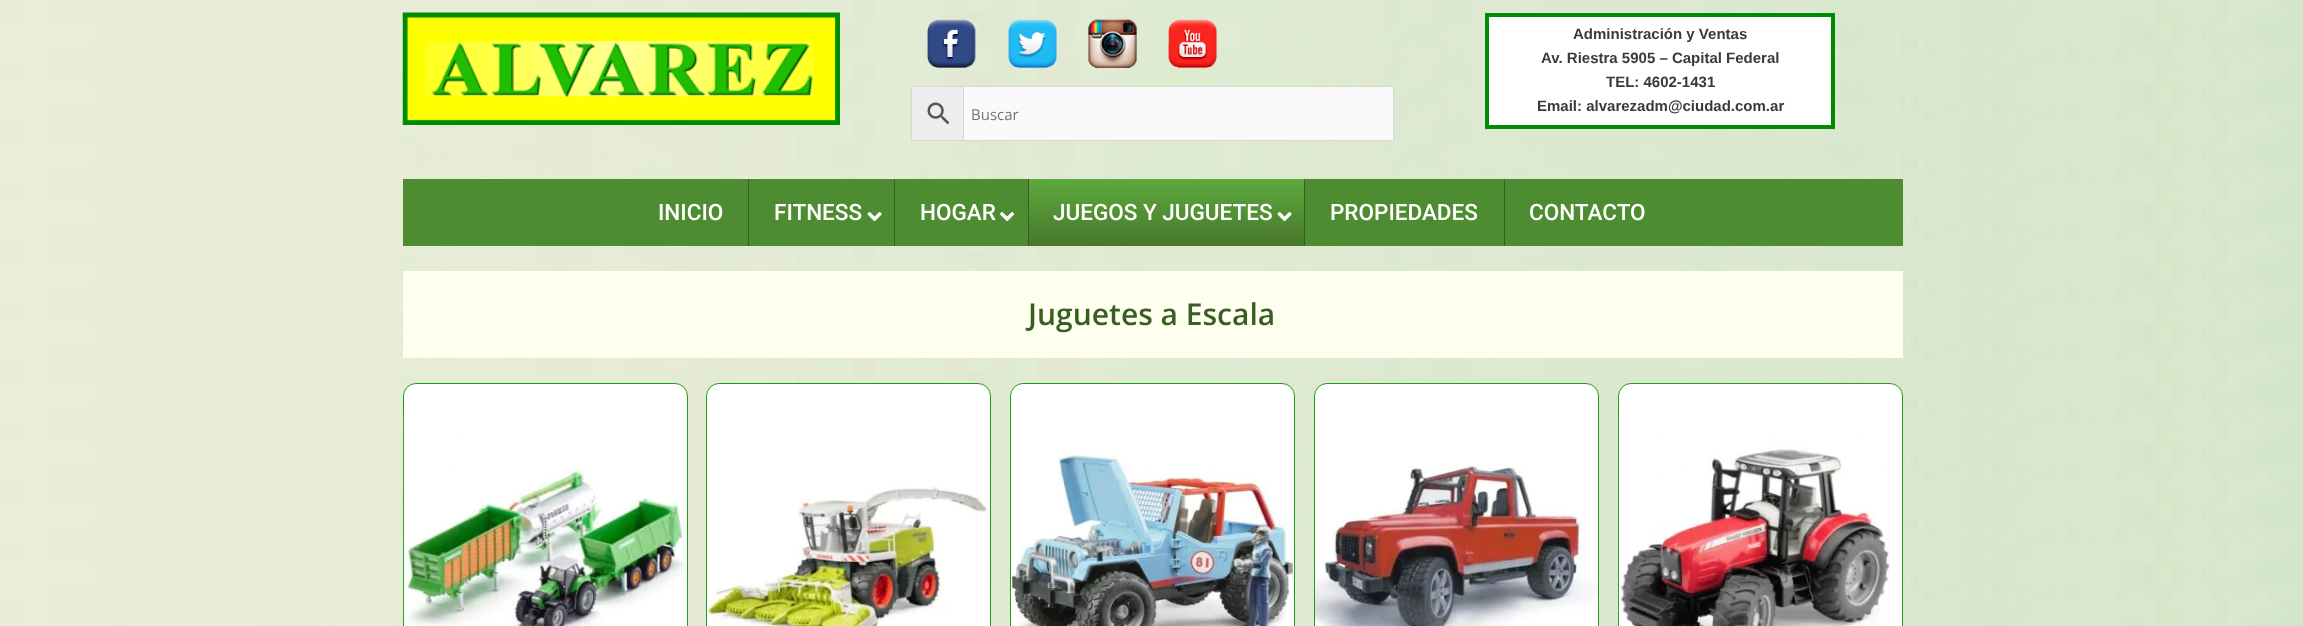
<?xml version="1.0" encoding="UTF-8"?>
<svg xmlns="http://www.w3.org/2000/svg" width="2303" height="626">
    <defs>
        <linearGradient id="g1" gradientUnits="userSpaceOnUse" x1="1166" y1="179" x2="1166" y2="246"><stop offset="0" stop-color="#5CAA3D"/><stop offset="1" stop-color="#49772C"/></linearGradient>
    </defs>
    <rect width="100%" height="100%" fill="#FFFFFF"/>
    <image x="0" y="0" width="2303" height="626" href="img_01.png"/>
    <image x="402" y="12" width="438" height="113" href="img_02.png"/>
    <image x="927" y="19" width="49" height="49" href="img_03.png"/>
    <image x="1008" y="19" width="49" height="49" href="img_04.png"/>
    <image x="1088" y="19" width="49" height="49" href="img_05.png"/>
    <image x="1168" y="19" width="49" height="49" href="img_06.png"/>
    <rect x="911.5" y="86.5" width="52" height="54" fill="#EDEDED" stroke="#D8D8D8"/>
    <image x="927" y="102" width="23" height="23" href="img_07.png"/>
    <rect x="963.5" y="86.5" width="430" height="54" fill="#FAFAFA" stroke="#D8D8D8"/>
    <text x="971" y="120" font-family="Open Sans" font-size="15" fill="#757575">Buscar</text>
    <rect x="1487" y="15" width="346" height="112" fill="#FFFFFF" stroke="#008C00" stroke-width="4"/>
    <text x="1573" y="39" font-family="Liberation Sans" font-size="15" font-weight="700" fill="#3A3A3A">Administración y Ventas</text>
    <text x="1541" y="63" font-family="Liberation Sans" font-size="15" font-weight="700" fill="#3A3A3A">Av. Riestra 5905 – Capital Federal</text>
    <text x="1606" y="87" font-family="Liberation Sans" font-size="15" font-weight="700" fill="#3A3A3A">TEL: 4602-1431</text>
    <text x="1537" y="111" font-family="Liberation Sans" font-size="15" font-weight="700" fill="#3A3A3A">Email: alvarezadm@ciudad.com.ar</text>
    <rect x="403" y="179" width="1500" height="67" fill="#4E8C32"/>
    <text x="658" y="220" font-family="Roboto" font-size="22.5" font-weight="500" fill="#FFFFFF">INICIO</text>
    <rect x="748" y="179" width="1" height="67" fill="#395E22"/>
    <text x="774" y="220" font-family="Roboto" font-size="22.5" font-weight="500" fill="#FFFFFF">FITNESS</text>
    <image x="867" y="212" width="15" height="10" href="img_08.png"/>
    <rect x="894" y="179" width="1" height="67" fill="#395E22"/>
    <text x="920" y="220" font-family="Roboto" font-size="22.5" font-weight="500" fill="#FFFFFF">HOGAR</text>
    <image x="1000" y="212" width="15" height="10" href="img_09.png"/>
    <rect x="1029" y="179" width="275" height="67" fill="url(#g1)"/>
    <rect x="1028" y="179" width="1" height="67" fill="#395E22"/>
    <text x="1053" y="220" font-family="Roboto" font-size="22.5" font-weight="500" fill="#FFFFFF">JUEGOS Y JUGUETES</text>
    <image x="1277" y="212" width="15" height="10" href="img_10.png"/>
    <rect x="1304" y="179" width="1" height="67" fill="#395E22"/>
    <text x="1330" y="220" font-family="Roboto" font-size="22.5" font-weight="500" fill="#FFFFFF">PROPIEDADES</text>
    <rect x="1504" y="179" width="1" height="67" fill="#395E22"/>
    <text x="1529" y="220" font-family="Roboto" font-size="22.5" font-weight="500" fill="#FFFFFF">CONTACTO</text>
    <rect x="403" y="271" width="1500" height="87" fill="#FFFFF0"/>
    <text x="1028" y="325" font-family="Open Sans" font-size="30" font-weight="600" fill="#395E22">Juguetes a Escala</text>
    <rect x="403.5" y="383.5" width="284" height="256" rx="12.5" fill="#FFFFFF" stroke="#1F9C1A"/>
    <image x="403" y="415" width="283" height="211" href="img_11.png"/>
    <rect x="706.5" y="383.5" width="284" height="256" rx="12.5" fill="#FFFFFF" stroke="#1F9C1A"/>
    <image x="707" y="486" width="281" height="140" href="img_12.png"/>
    <rect x="1010.5" y="383.5" width="284" height="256" rx="12.5" fill="#FFFFFF" stroke="#1F9C1A"/>
    <image x="1011" y="455" width="283" height="171" href="img_13.png"/>
    <rect x="1314.5" y="383.5" width="284" height="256" rx="12.5" fill="#FFFFFF" stroke="#1F9C1A"/>
    <image x="1315" y="464" width="282" height="162" href="img_14.png"/>
    <rect x="1618.5" y="383.5" width="284" height="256" rx="12.5" fill="#FFFFFF" stroke="#1F9C1A"/>
    <image x="1618" y="415" width="272" height="211" href="img_15.png"/>
</svg>
